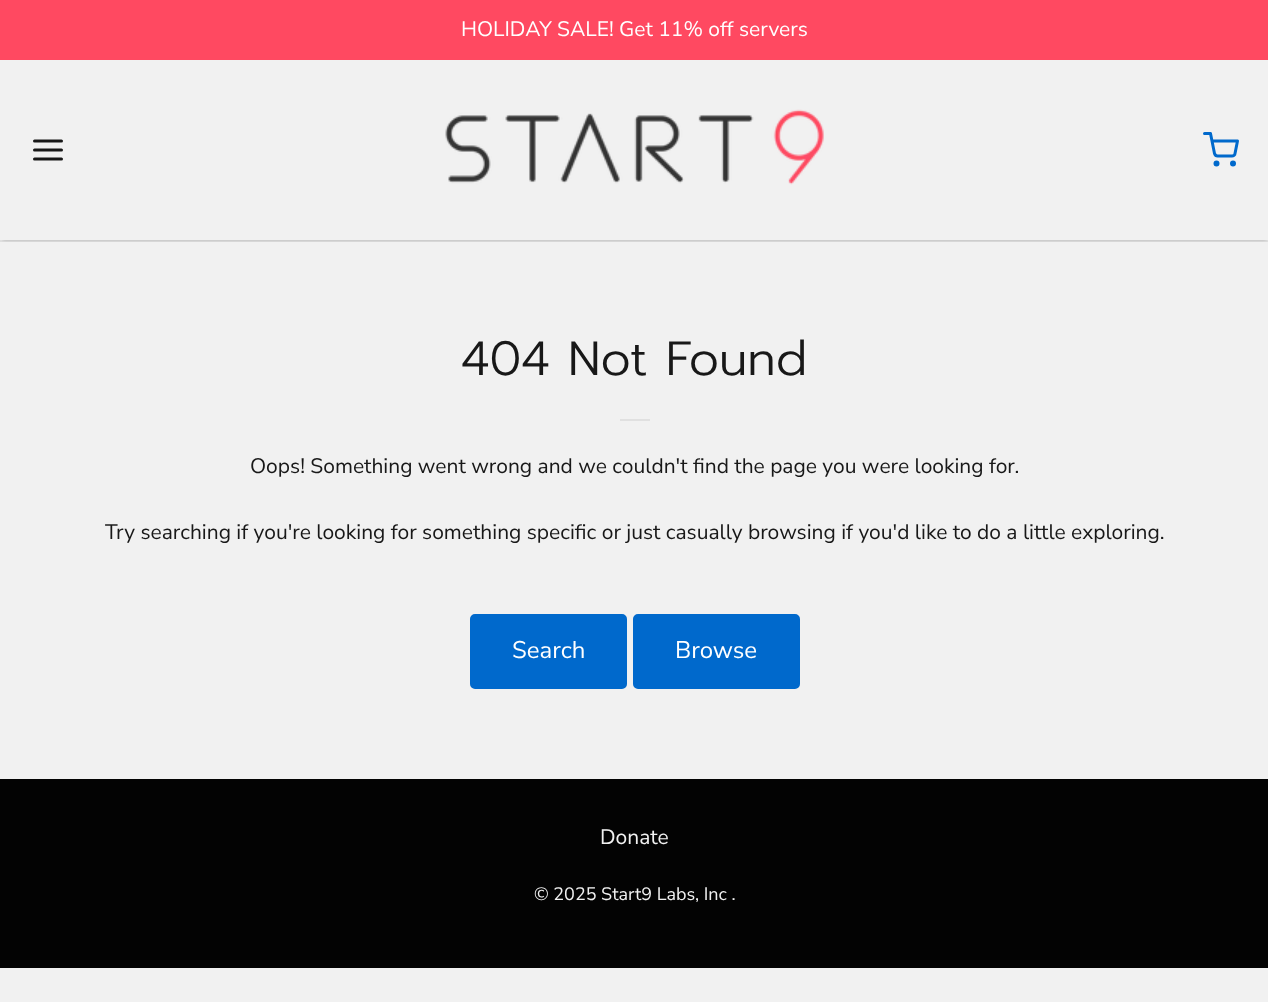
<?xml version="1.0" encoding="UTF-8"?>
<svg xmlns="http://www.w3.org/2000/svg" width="1268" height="1002">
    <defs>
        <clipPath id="clip1"><rect x="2" y="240" width="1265" height="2"/></clipPath>
        <filter id="blur1" x="-50%" y="-200%" width="200%" height="500%"><feGaussianBlur stdDeviation="1.5"/></filter>
    </defs>
    <rect width="100%" height="100%" fill="#F1F1F1"/>
    <rect x="0" y="240" width="1268" height="2" fill="#DEDEDE"/>
    <rect x="0" y="0" width="1268" height="60" fill="#FF4961"/>
    <text x="461" y="36" font-family="Nunito Sans" font-size="21" fill="#FFFFFF">HOLIDAY SALE! Get 11% off servers</text>
    <g clip-path="url(#clip1)">
        <rect x="3" y="66" width="1263" height="174" fill="#000000" fill-opacity="0.2" filter="url(#blur1)"/>
    </g>
    <path d="M 34.5 150 H 61.5 M 34.5 141 H 61.5 M 34.5 159 H 61.5" fill="none" stroke="#181818" stroke-width="3" stroke-linecap="round" stroke-linejoin="round"/>
    <image x="445" y="109" width="379" height="76" href="img_01.png"/>
    <path d="M 1204.5 133.5 H 1210.5 L 1214.5 153.5 C 1215 155 1216 156 1217.5 156 H 1232 C 1233.5 156 1235 155 1235 153.5 L 1237.5 141 H 1212" fill="none" stroke="#0069CC" stroke-width="3" stroke-linecap="round" stroke-linejoin="round"/>
    <circle cx="1216.5" cy="163.5" r="1.5" fill="none" stroke="#0069CC" stroke-width="3"/>
    <circle cx="1233" cy="163.5" r="1.5" fill="none" stroke="#0069CC" stroke-width="3"/>
    <text x="461" y="375" font-family="Prompt" font-size="48" font-weight="300" fill="#181818">404 Not Found</text>
    <rect x="620" y="419" width="30" height="2" fill="#E0E0E0"/>
    <text x="250" y="473" font-family="Nunito Sans" font-size="21" fill="#181818">Oops! Something went wrong and we couldn't find the page you were looking for.</text>
    <text x="105" y="539" font-family="Nunito Sans" font-size="21" fill="#181818">Try searching if you're looking for something specific or just casually browsing if you'd like to do a little exploring.</text>
    <rect x="471.5" y="615.5" width="154" height="72" rx="3.5" fill="#0069CC" stroke="#0069CC" stroke-width="3"/>
    <text x="512" y="658" font-family="Nunito Sans" font-size="24" fill="#FFFFFF">Search</text>
    <rect x="634.5" y="615.5" width="164" height="72" rx="3.5" fill="#0069CC" stroke="#0069CC" stroke-width="3"/>
    <text x="675" y="658" font-family="Nunito Sans" font-size="24" fill="#FFFFFF">Browse</text>
    <rect x="0" y="779" width="1268" height="189" fill="#030303"/>
    <text x="600" y="844" font-family="Nunito Sans" font-size="21" fill="#F1F1F1">Donate</text>
    <text x="534" y="900" font-family="Nunito Sans" font-size="18" fill="#F1F1F1">© 2025 Start9 Labs, Inc .</text>
</svg>
